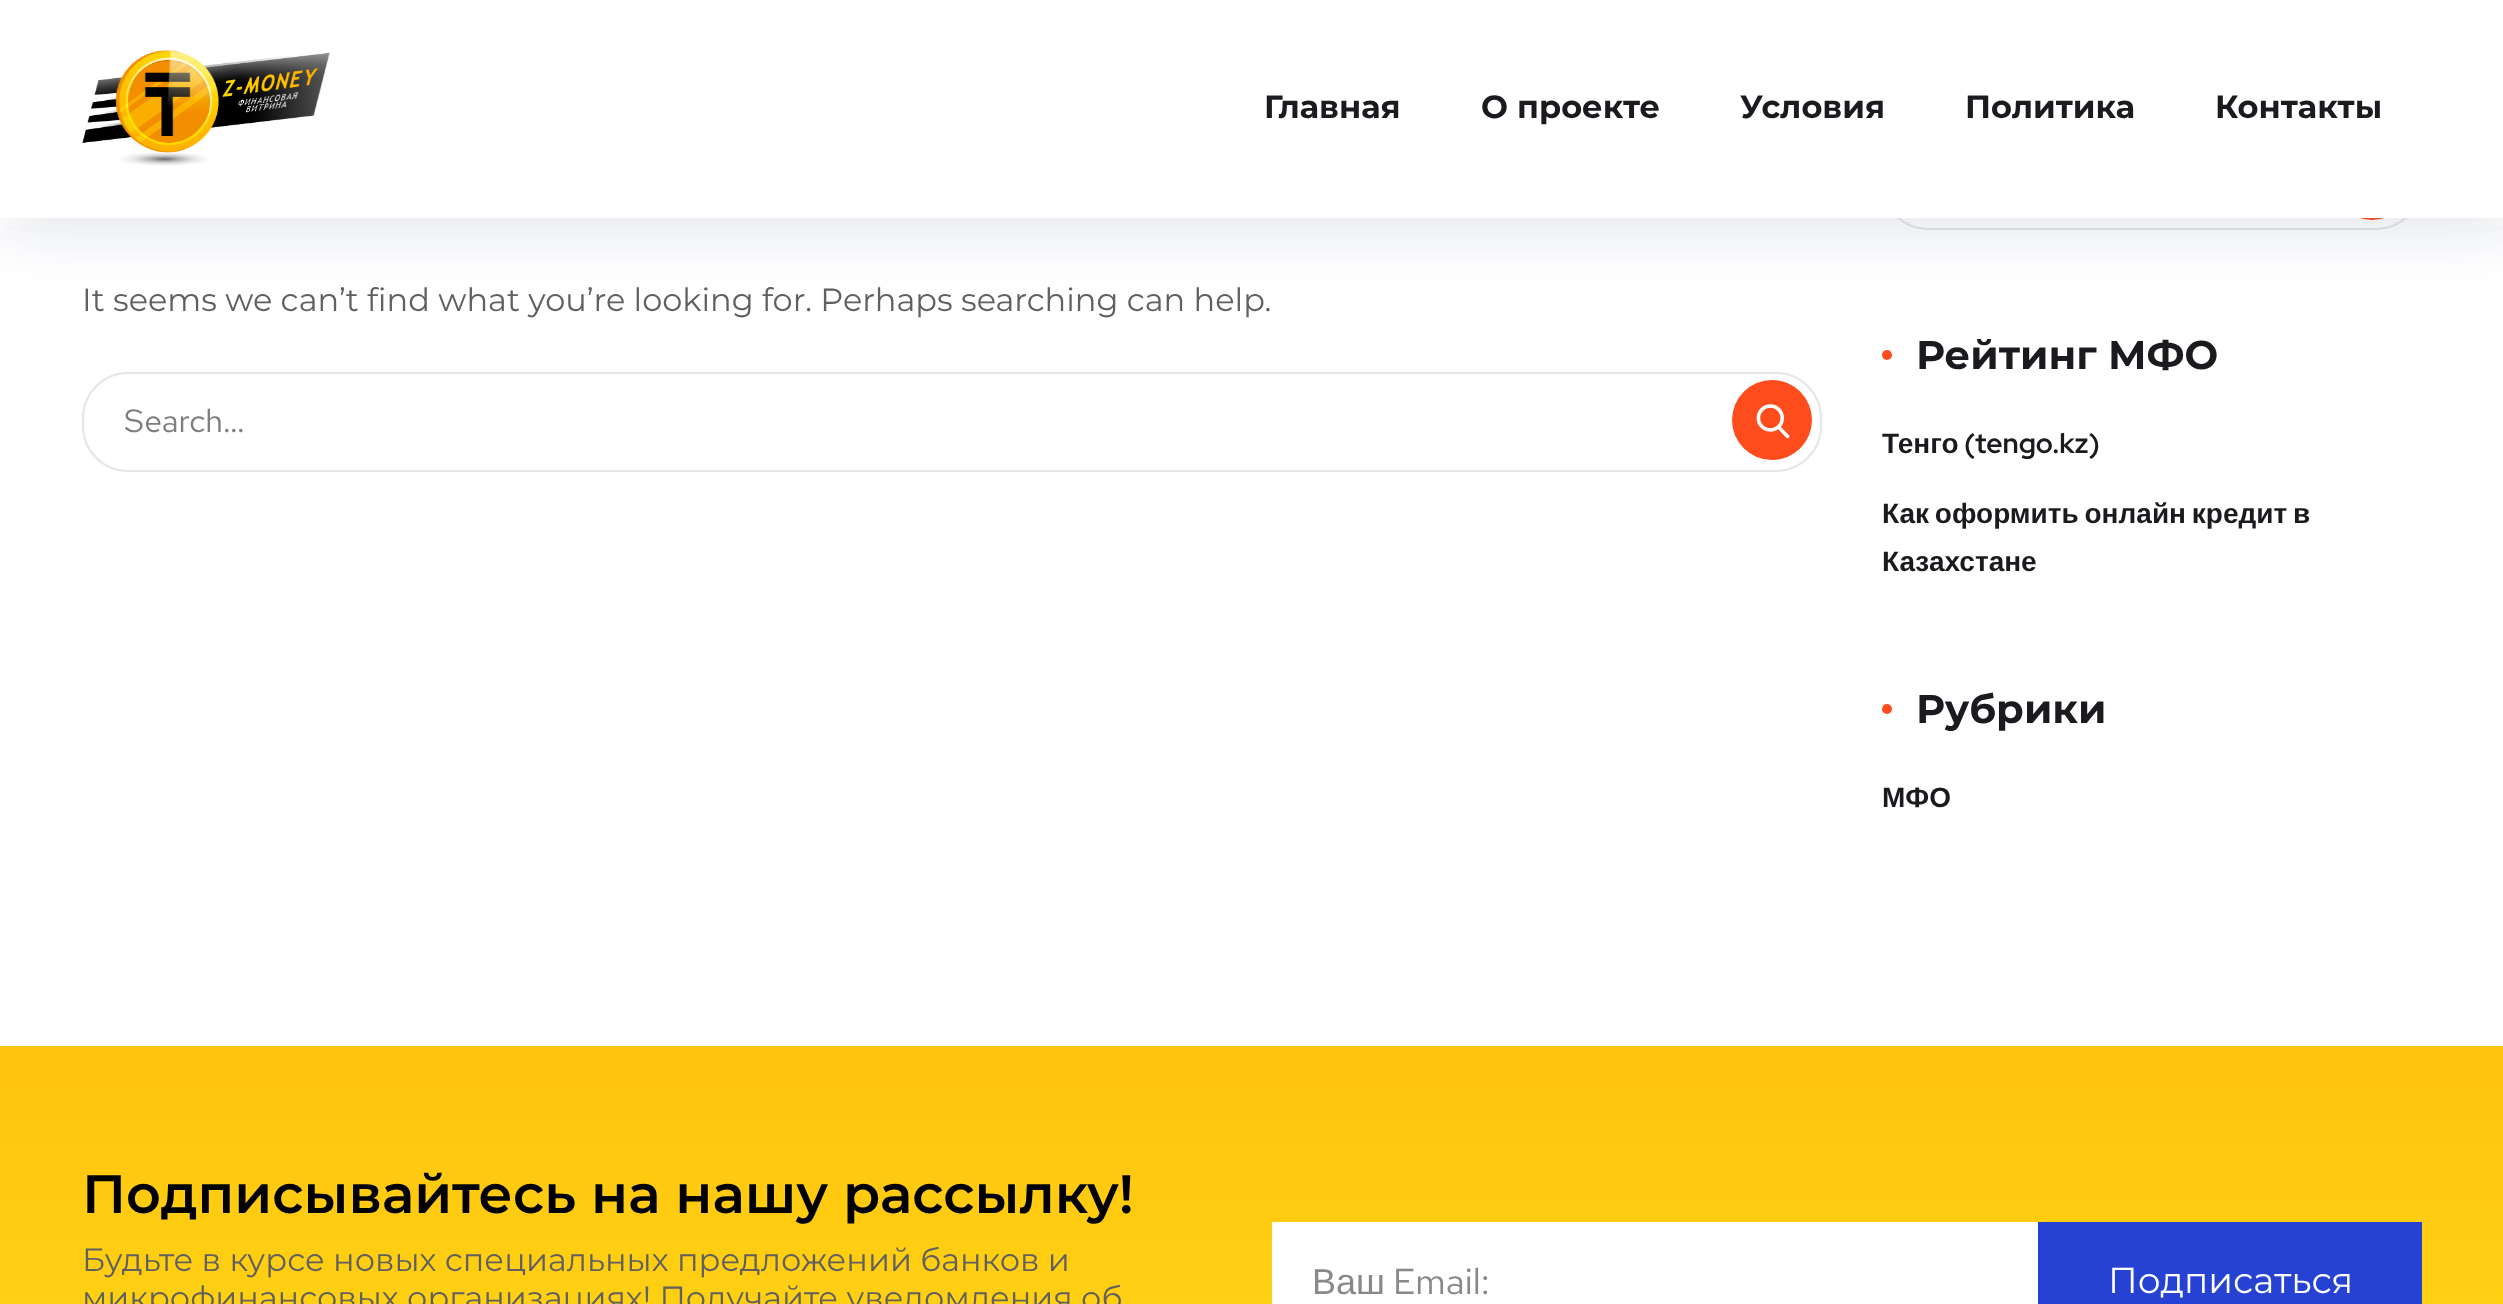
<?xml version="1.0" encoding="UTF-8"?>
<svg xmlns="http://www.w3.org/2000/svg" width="2503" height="1304">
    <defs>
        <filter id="blur1" x="-50%" y="-200%" width="200%" height="500%"><feGaussianBlur stdDeviation="30"/></filter>
        <linearGradient id="g1" gradientUnits="userSpaceOnUse" x1="1252" y1="1046" x2="1252" y2="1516"><stop offset="0" stop-color="#FFC40E"/><stop offset="1" stop-color="#FFD917"/></linearGradient>
    </defs>
    <rect width="100%" height="100%" fill="#FFFFFF"/>
    <rect x="1883" y="131" width="538" height="98" rx="45" fill="none" stroke="#E6E6E6" stroke-width="2"/>
    <circle cx="2372" cy="180" r="40" fill="#FE4C1C"/>
    <rect x="8" y="8" width="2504" height="218" fill="#2A4371" fill-opacity="0.15" filter="url(#blur1)"/>
    <rect x="0" y="0" width="2503" height="218" fill="#FFFFFF"/>
    <image x="82" y="50" width="248" height="116" href="img_01.png"/>
    <text x="1264" y="118" font-family="Montserrat" font-size="32" font-weight="700" fill="#1A1B1E">Главная</text>
    <text x="1481" y="118" font-family="Montserrat" font-size="32" font-weight="700" fill="#1A1B1E">О проекте</text>
    <text x="1740" y="118" font-family="Montserrat" font-size="32" font-weight="700" fill="#1A1B1E">Условия</text>
    <text x="1965" y="118" font-family="Montserrat" font-size="32" font-weight="700" fill="#1A1B1E">Политика</text>
    <text x="2215" y="118" font-family="Montserrat" font-size="32" font-weight="700" fill="#1A1B1E">Контакты</text>
    <text x="82" y="311" font-family="Montserrat" font-size="32" fill="#606060">It seems we can’t find what you’re looking for. Perhaps searching can help.</text>
    <rect x="83" y="373" width="1738" height="98" rx="45" fill="none" stroke="#E6E6E6" stroke-width="2"/>
    <text x="124" y="432" font-family="Red Hat Text" font-size="32" fill="#7E7E7E">Search…</text>
    <circle cx="1772" cy="420" r="40" fill="#FE4C1C"/>
    <image x="1756" y="404" width="34" height="35" href="img_02.png"/>
    <circle cx="1887" cy="355" r="5" fill="#FE4C1C"/>
    <text x="1916" y="369" font-family="Montserrat" font-size="40" font-weight="700" fill="#1A1B1E">Рейтинг МФО</text>
    <text x="1882" y="453" font-family="Liberation Sans" font-size="28" font-weight="700" fill="#1A1B1E">Тенго</text>
    <text x="1964" y="453" font-family="Red Hat Display" font-size="28" font-weight="700" fill="#1A1B1E">(tengo.kz)</text>
    <text font-family="Liberation Sans" font-size="28" font-weight="700" fill="#1A1B1E">
        <tspan x="1882" y="523" word-spacing="-2">Как оформить онлайн кредит в</tspan>
        <tspan x="1882" y="571">Казахстане</tspan>
    </text>
    <circle cx="1887" cy="709" r="5" fill="#FE4C1C"/>
    <text x="1916" y="723" font-family="Montserrat" font-size="40" font-weight="700" fill="#1A1B1E">Рубрики</text>
    <text x="1882" y="807" font-family="Liberation Sans" font-size="28" font-weight="700" fill="#1A1B1E">МФО</text>
    <rect x="0" y="1046" width="2503" height="258" fill="url(#g1)"/>
    <text x="82" y="1213" font-family="Montserrat" font-size="54" font-weight="600" fill="#000000">Подписывайтесь на нашу рассылку!</text>
    <text font-family="Montserrat" font-size="32" fill="#606060">
        <tspan x="82" y="1271">Будьте в курсе новых специальных предложений банков и</tspan>
        <tspan x="82" y="1309">микрофинансовых организациях! Получайте уведомления об</tspan>
    </text>
    <rect x="1272" y="1222" width="766" height="82" fill="#FFFFFF"/>
    <text x="1312" y="1294" font-family="Liberation Sans" font-size="36" fill="#87898A">Ваш</text>
    <text x="1393" y="1294" font-family="Red Hat Text" font-size="36" fill="#87898A">Email:</text>
    <rect x="2038" y="1222" width="384" height="82" fill="#2642D3"/>
    <text x="2108" y="1293" font-family="Montserrat" font-size="36" fill="#FFFFFF">Подписаться</text>
</svg>
